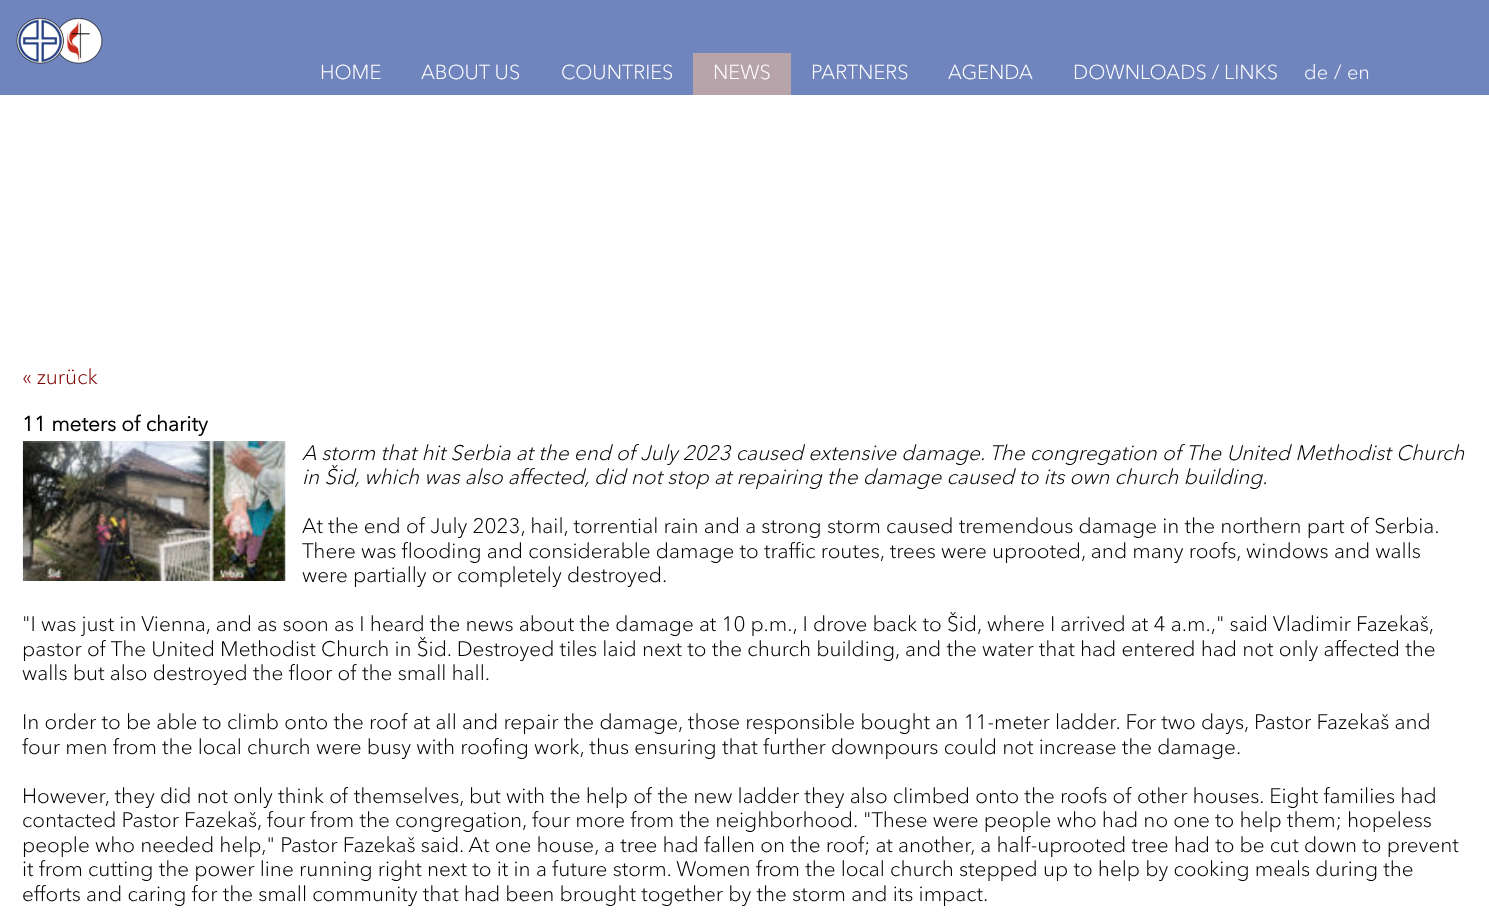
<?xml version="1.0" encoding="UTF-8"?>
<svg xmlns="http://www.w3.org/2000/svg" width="1489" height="912">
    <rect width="100%" height="100%" fill="#FFFFFF"/>
    <rect x="0" y="0" width="1489" height="95" fill="#7084BD"/>
    <image x="16" y="18" width="87" height="46" href="img_01.png"/>
    <text x="320" y="79" font-family="Avenir Next" font-size="20" font-weight="300" fill="#FFFFFF">HOME</text>
    <text x="421" y="79" font-family="Avenir Next" font-size="20" font-weight="300" fill="#FFFFFF">ABOUT US</text>
    <text x="561" y="79" font-family="Avenir Next" font-size="20" font-weight="300" fill="#FFFFFF">COUNTRIES</text>
    <rect x="693" y="53" width="98" height="42" fill="#B7A4AA"/>
    <text x="713" y="79" font-family="Avenir Next" font-size="20" font-weight="300" fill="#FFFFFF">NEWS</text>
    <text x="811" y="79" font-family="Avenir Next" font-size="20" font-weight="300" fill="#FFFFFF">PARTNERS</text>
    <text x="948" y="79" font-family="Avenir Next" font-size="20" font-weight="300" fill="#FFFFFF">AGENDA</text>
    <text x="1073" y="79" font-family="Avenir Next" font-size="20" font-weight="300" fill="#FFFFFF">DOWNLOADS / LINKS</text>
    <text x="1304" y="79" font-family="Avenir Next" font-size="20" font-weight="300" fill="#FFFFFF">de</text>
    <text x="1334" y="79" font-family="Avenir Next" font-size="20" font-weight="300" fill="#FFFFFF">/</text>
    <text x="1347" y="79" font-family="Avenir Next" font-size="20" font-weight="300" fill="#FFFFFF">en</text>
    <text x="22" y="384" font-family="Avenir Next" font-size="20.85" font-weight="300" fill="#800000">« zurück</text>
    <text x="22" y="431" font-family="Avenir Next" font-size="20.85" font-weight="700" fill="#000000">11 meters of charity</text>
    <image x="22" y="441" width="264" height="140" href="img_02.png"/>
    <text font-family="Avenir Next" font-size="20.85" font-weight="300" font-style="italic" fill="#000000">
        <tspan x="302" y="460">A storm that hit Serbia at the end of July 2023 caused extensive damage. The congregation of The United Methodist Church</tspan>
        <tspan x="302" y="484">in Šid, which was also affected, did not stop at repairing the damage caused to its own church building.</tspan>
    </text>
    <text font-family="Avenir Next" font-size="20.85" font-weight="300" fill="#000000">
        <tspan x="302" y="533">At the end of July 2023, hail, torrential rain and a strong storm caused tremendous damage in the northern part of Serbia.</tspan>
        <tspan x="302" y="558">There was flooding and considerable damage to traffic routes, trees were uprooted, and many roofs, windows and walls</tspan>
        <tspan x="302" y="582">were partially or completely destroyed.</tspan>
    </text>
    <text font-family="Avenir Next" font-size="20.85" font-weight="300" fill="#000000">
        <tspan x="22" y="631">"I was just in Vienna, and as soon as I heard the news about the damage at 10 p.m., I drove back to Šid, where I arrived at 4 a.m.," said Vladimir Fazekaš,</tspan>
        <tspan x="22" y="656">pastor of The United Methodist Church in Šid. Destroyed tiles laid next to the church building, and the water that had entered had not only affected the</tspan>
        <tspan x="22" y="680">walls but also destroyed the floor of the small hall.</tspan>
    </text>
    <text font-family="Avenir Next" font-size="20.85" font-weight="300" fill="#000000">
        <tspan x="22" y="729">In order to be able to climb onto the roof at all and repair the damage, those responsible bought an 11-meter ladder. For two days, Pastor Fazekaš and</tspan>
        <tspan x="22" y="754">four men from the local church were busy with roofing work, thus ensuring that further downpours could not increase the damage.</tspan>
    </text>
    <text font-family="Avenir Next" font-size="20.85" font-weight="300" fill="#000000">
        <tspan x="22" y="803">However, they did not only think of themselves, but with the help of the new ladder they also climbed onto the roofs of other houses. Eight families had</tspan>
        <tspan x="22" y="827">contacted Pastor Fazekaš, four from the congregation, four more from the neighborhood. "These were people who had no one to help them; hopeless</tspan>
        <tspan x="22" y="852">people who needed help," Pastor Fazekaš said. At one house, a tree had fallen on the roof; at another, a half-uprooted tree had to be cut down to prevent</tspan>
        <tspan x="22" y="876">it from cutting the power line running right next to it in a future storm. Women from the local church stepped up to help by cooking meals during the</tspan>
        <tspan x="22" y="901">efforts and caring for the small community that had been brought together by the storm and its impact.</tspan>
    </text>
</svg>
